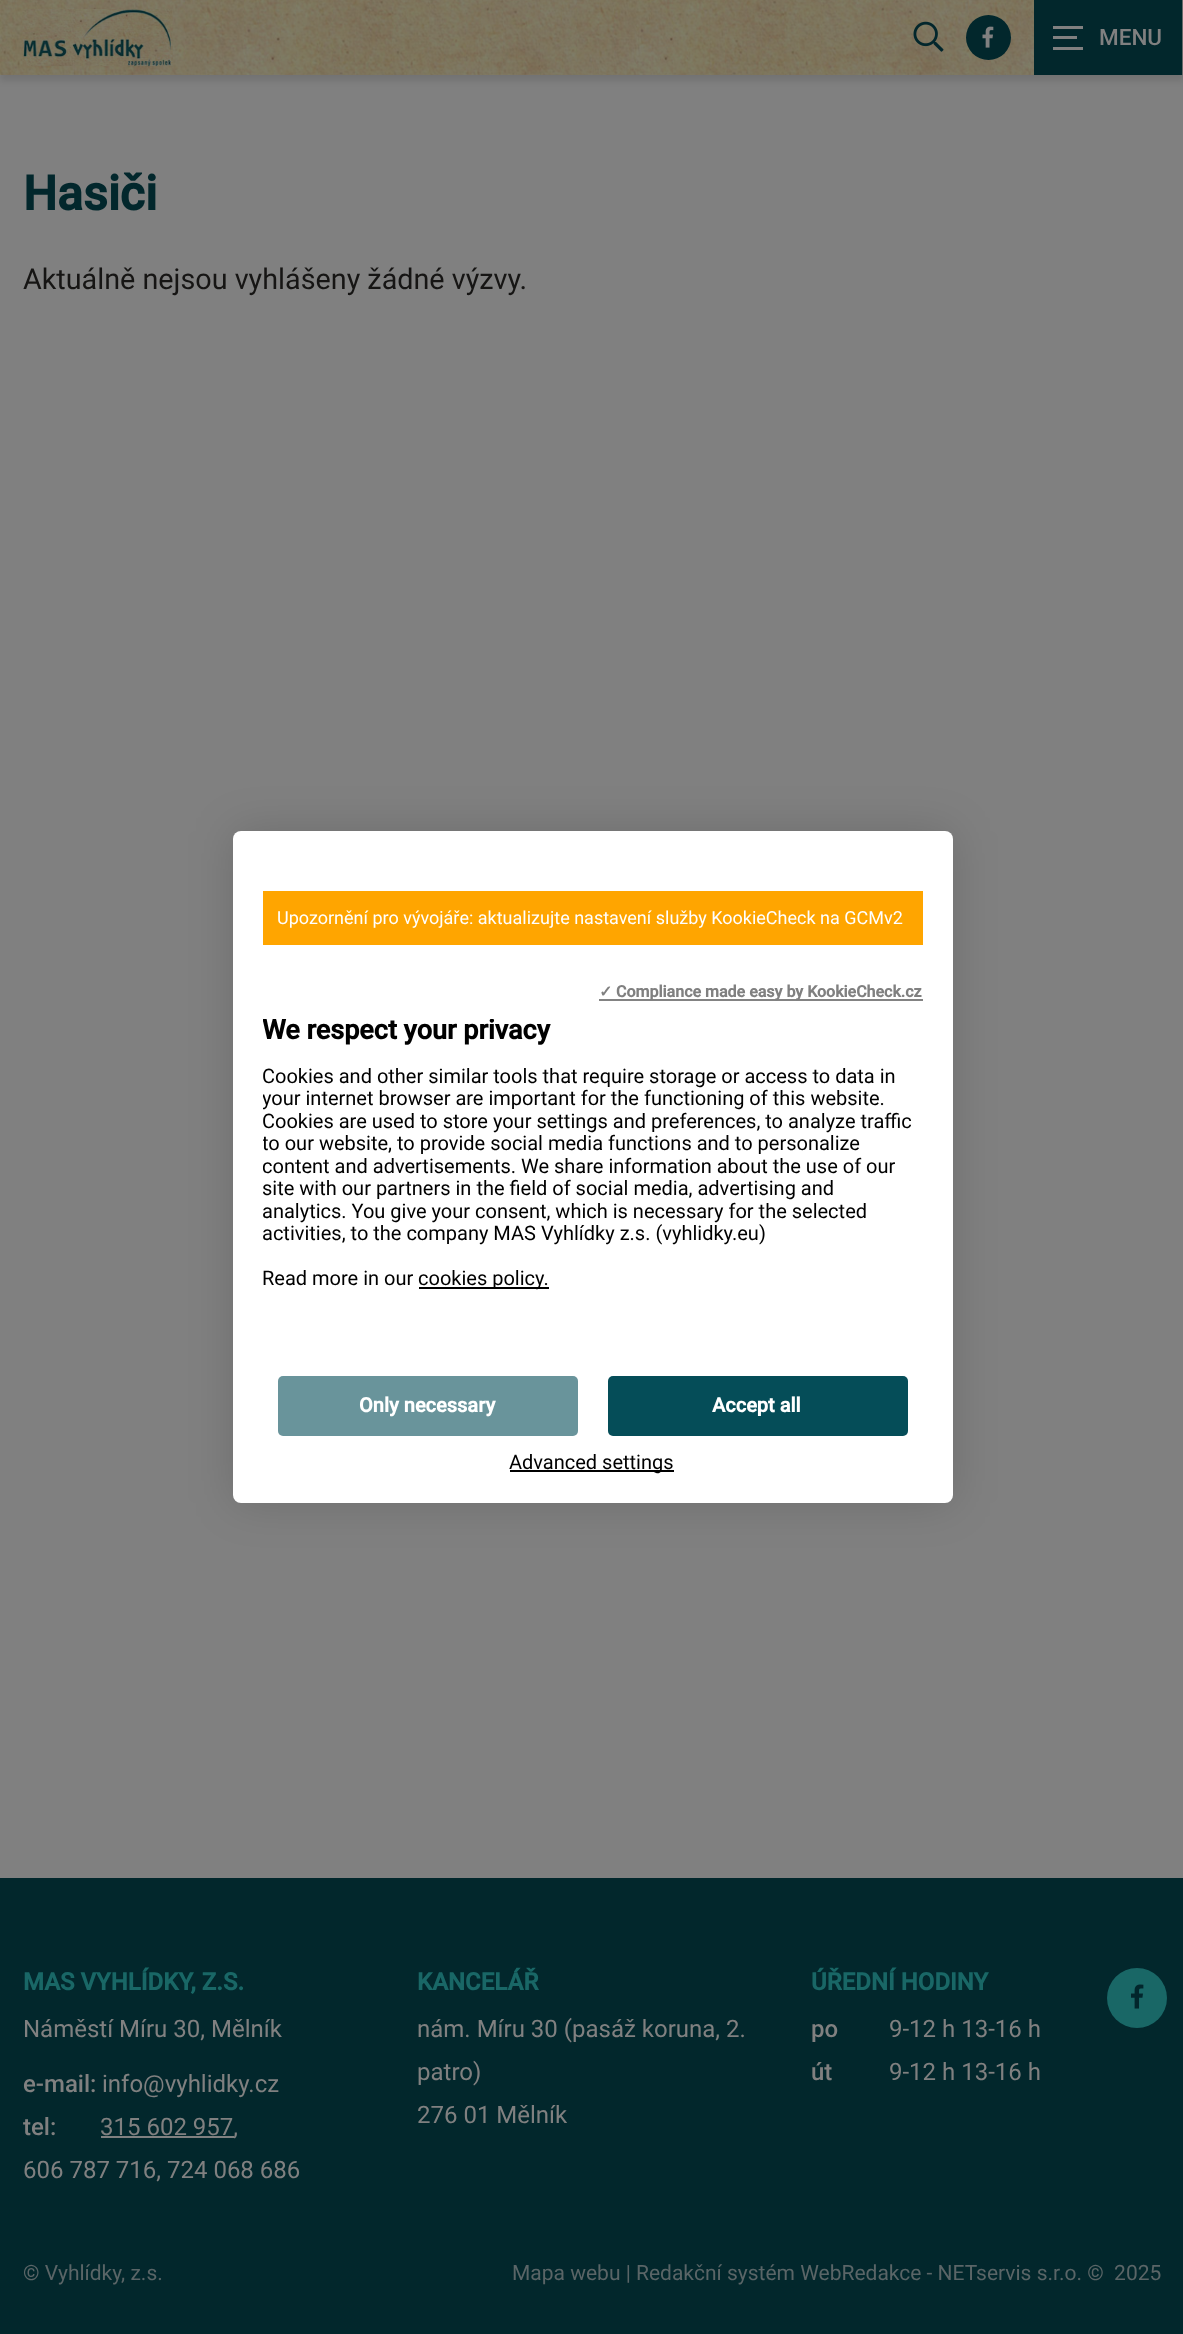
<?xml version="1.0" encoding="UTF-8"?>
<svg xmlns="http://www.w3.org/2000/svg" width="1183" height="2334">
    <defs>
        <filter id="blur1" x="-50%" y="-200%" width="200%" height="500%"><feGaussianBlur stdDeviation="3"/></filter>
        <filter id="blur2" x="-50%" y="-200%" width="200%" height="500%"><feGaussianBlur stdDeviation="22.5"/></filter>
        <clipPath id="clip1"><rect x="263" y="1019" width="690" height="454"/></clipPath>
    </defs>
    <rect width="100%" height="100%" fill="#808080"/>
    <rect x="0" y="6" width="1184" height="75" fill="#000000" fill-opacity="0.1" filter="url(#blur1)"/>
    <image x="0" y="0" width="1034" height="75" href="img_01.png"/>
    <image x="22" y="9" width="151" height="58" href="img_02.png"/>
    <image x="913" y="21" width="31" height="31" href="img_03.png"/>
    <circle cx="988.5" cy="37.5" r="22.5" fill="#02272C"/>
    <image x="982" y="26" width="12" height="22" href="img_04.png"/>
    <rect x="1034" y="0" width="148" height="75" fill="#02272C"/>
    <rect x="1182" y="0" width="1" height="75" fill="#6A6A6A"/>
    <rect x="1053" y="26" width="30" height="3" fill="#808080"/>
    <rect x="1053" y="36" width="24" height="3" fill="#808080"/>
    <rect x="1053" y="47" width="30" height="3" fill="#808080"/>
    <text x="1099" y="45" font-family="Roboto" font-size="22.5" font-weight="500" fill="#808080">MENU</text>
    <text x="23" y="210" font-family="Roboto" font-size="48" font-weight="700" fill="#02272C">Hasiči</text>
    <text x="23" y="289" font-family="Roboto" font-size="28.75" fill="#161514">Aktuálně nejsou vyhlášeny žádné výzvy.</text>
    <rect x="0" y="1878" width="1183" height="456" fill="#02272C"/>
    <text x="23" y="1990" font-family="Roboto" font-size="24" font-weight="700" fill="#196766">MAS VYHLÍDKY, Z.S.</text>
    <text x="23" y="2037" font-family="Roboto" font-size="24" fill="#808080">Náměstí Míru 30, Mělník</text>
    <text x="23" y="2092" font-family="Roboto" font-size="24" font-weight="500" fill="#808080">e-mail:</text>
    <text x="102" y="2092" font-family="Roboto" font-size="24" fill="#808080">info@vyhlidky.cz</text>
    <text x="23" y="2135" font-family="Roboto" font-size="24" font-weight="500" fill="#808080">tel:</text>
    <rect x="101" y="2136" width="133" height="2" fill="#808080"/>
    <text x="100" y="2135" font-family="Roboto" font-size="24" fill="#808080">315 602 957,</text>
    <text x="23" y="2178" font-family="Roboto" font-size="24" fill="#808080">606 787 716, 724 068 686</text>
    <text x="417" y="1990" font-family="Roboto" font-size="24" font-weight="700" fill="#196766">KANCELÁŘ</text>
    <text font-family="Roboto" font-size="24" fill="#808080">
        <tspan x="417" y="2037">nám. Míru 30 (pasáž koruna, 2.</tspan>
        <tspan x="417" y="2080">patro)</tspan>
        <tspan x="417" y="2123">276 01 Mělník</tspan>
    </text>
    <text x="811" y="1990" font-family="Roboto" font-size="24" font-weight="700" fill="#196766">ÚŘEDNÍ HODINY</text>
    <text x="811" y="2037" font-family="Roboto" font-size="24" font-weight="500" fill="#808080">po</text>
    <text x="889" y="2037" font-family="Roboto" font-size="24" fill="#808080">9-12 h 13-16 h</text>
    <text x="811" y="2080" font-family="Roboto" font-size="24" font-weight="500" fill="#808080">út</text>
    <text x="889" y="2080" font-family="Roboto" font-size="24" fill="#808080">9-12 h 13-16 h</text>
    <circle cx="1137" cy="1998" r="30" fill="#196766"/>
    <image x="1131" y="1984" width="13" height="25" href="img_05.png"/>
    <text x="23" y="2280" font-family="Roboto" font-size="21" fill="#5A6567">© Vyhlídky, z.s.</text>
    <text x="512" y="2280" font-family="Roboto" font-size="21" fill="#5A6567" xml:space="preserve">Mapa webu | Redakční systém WebRedakce - NETservis s.r.o. ©  2025</text>
    <rect x="233" y="831" width="720" height="672" rx="8" fill="#000000" fill-opacity="0.15" filter="url(#blur2)"/>
    <rect x="233" y="831" width="720" height="672" rx="8" fill="#FFFFFF"/>
    <rect x="263" y="891" width="660" height="54" fill="#FFA500"/>
    <text x="277" y="924" font-family="Roboto" font-size="18" fill="#FFFFFF">Upozornění pro vývojáře: aktualizujte nastavení služby KookieCheck na GCMv2</text>
    <text x="599" y="997" font-family="DejaVu Sans" font-size="16" font-weight="700" fill="#808080">✓</text>
    <rect x="599" y="999" width="324" height="2" fill="#838383"/>
    <text x="616" y="997" font-family="Roboto" font-size="16" font-weight="700" fill="#808080">Compliance made easy by KookieCheck.cz</text>
    <g clip-path="url(#clip1)">
        <text x="262" y="1039" font-family="Roboto" font-size="27" font-weight="700" fill="#000000">We respect your privacy</text>
    </g>
    <text x="262" y="1083" font-family="Roboto" font-size="20" fill="#000000">Cookies and other similar tools that require storage or access to data in</text>
    <g clip-path="url(#clip1)">
        <text x="262" y="1105" font-family="Roboto" font-size="20" fill="#000000">your internet browser are important for the functioning of this website.</text>
    </g>
    <text x="262" y="1128" font-family="Roboto" font-size="20" fill="#000000">Cookies are used to store your settings and preferences, to analyze traffic</text>
    <g clip-path="url(#clip1)">
        <text font-family="Roboto" font-size="20" fill="#000000">
            <tspan x="262" y="1150">to our website, to provide social media functions and to personalize</tspan>
            <tspan x="262" y="1173">content and advertisements. We share information about the use of our</tspan>
        </text>
    </g>
    <text font-family="Roboto" font-size="20" fill="#000000">
        <tspan x="262" y="1195">site with our partners in the field of social media, advertising and</tspan>
        <tspan x="262" y="1218">analytics. You give your consent, which is necessary for the selected</tspan>
        <tspan x="262" y="1240">activities, to the company MAS Vyhlídky z.s. (vyhlidky.eu)</tspan>
    </text>
    <text x="262" y="1285" font-family="Roboto" font-size="20" fill="#000000">Read more in our</text>
    <rect x="419" y="1287" width="130" height="2" fill="#000000"/>
    <text x="418" y="1285" font-family="Roboto" font-size="20" fill="#000000">cookies policy.</text>
    <rect x="278" y="1376" width="300" height="60" rx="5" fill="#69949B"/>
    <text x="359" y="1412" font-family="Roboto" font-size="20" font-weight="700" fill="#FFFFFF">Only necessary</text>
    <rect x="608" y="1376" width="300" height="60" rx="5" fill="#054D58"/>
    <text x="712" y="1412" font-family="Roboto" font-size="20" font-weight="700" fill="#FFFFFF">Accept all</text>
    <rect x="510" y="1470" width="164" height="2" fill="#000000"/>
    <text x="509" y="1469" font-family="Roboto" font-size="20" fill="#000000">Advanced settings</text>
</svg>
